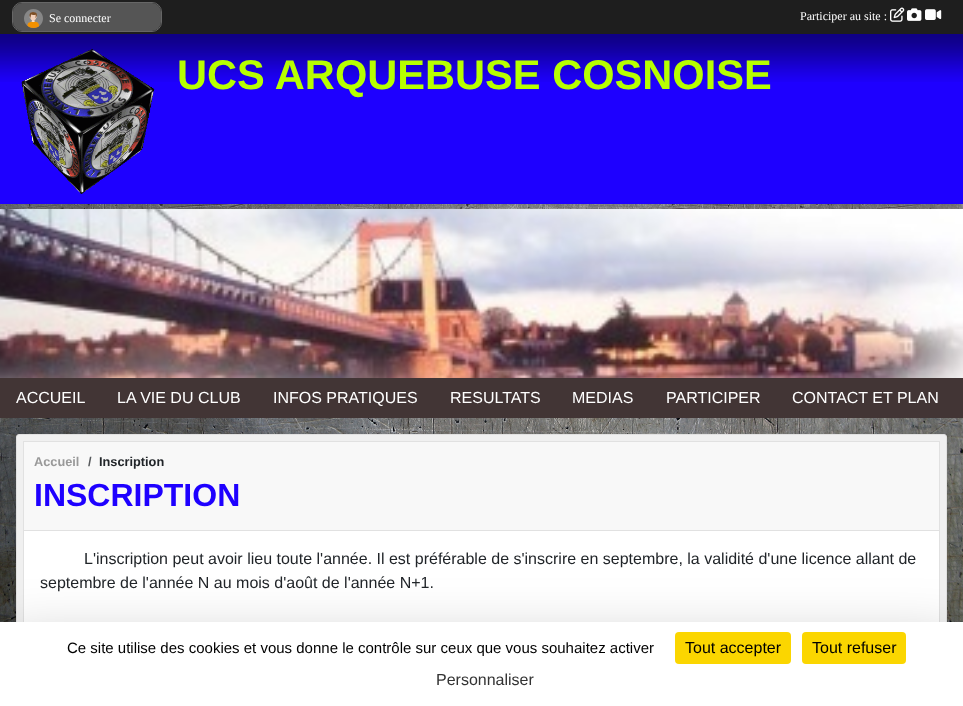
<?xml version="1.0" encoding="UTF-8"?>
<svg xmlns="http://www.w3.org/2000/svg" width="963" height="706">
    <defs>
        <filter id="blur1" x="-50%" y="-200%" width="200%" height="500%"><feGaussianBlur stdDeviation="2.5"/></filter>
        <filter id="blur2" x="-50%" y="-200%" width="200%" height="500%"><feGaussianBlur stdDeviation="30"/></filter>
    </defs>
    <rect width="100%" height="100%" fill="#FFFFFF"/>
    <image x="0" y="204" width="963" height="418" href="img_01.png"/>
    <rect x="0" y="41" width="963" height="170" fill="#505050" fill-opacity="0.5" filter="url(#blur1)"/>
    <rect x="0" y="0" width="963" height="34" fill="#1E1E1E"/>
    <rect x="12.5" y="2.5" width="149" height="29" rx="9.5" fill="none" stroke="#666666"/>
    <rect x="13" y="3" width="148" height="28" rx="9" fill="#555555"/>
    <image x="24" y="9" width="19" height="19" href="img_02.png"/>
    <text x="49" y="22" font-family="Liberation Serif" font-size="12" fill="#FFFFFF">Se connecter</text>
    <text x="800" y="20" font-family="Liberation Serif" font-size="12" fill="#FFFFFF">Participer au site :</text>
    <image x="890" y="7" width="15" height="15" href="img_03.png"/>
    <image x="907" y="8" width="15" height="13" href="img_04.png"/>
    <image x="925" y="9" width="17" height="11" href="img_05.png"/>
    <rect x="0" y="34" width="963" height="170" fill="#1E00FF"/>
    <image x="0" y="34" width="963" height="48" href="img_06.png"/>
    <image x="21" y="49" width="134" height="145" href="img_07.png"/>
    <text x="177" y="89" font-family="Liberation Sans" font-size="41.6" font-weight="700" fill="#B7FF00">UCS ARQUEBUSE COSNOISE</text>
    <image x="0" y="209" width="963" height="169" href="img_08.png"/>
    <rect x="0" y="378" width="963" height="40" fill="#423535"/>
    <text x="16" y="403" font-family="Liberation Sans" font-size="16" fill="#FFFFFF">ACCUEIL</text>
    <text x="117" y="403" font-family="Liberation Sans" font-size="16" fill="#FFFFFF">LA VIE DU CLUB</text>
    <text x="273" y="403" font-family="Liberation Sans" font-size="16" fill="#FFFFFF">INFOS PRATIQUES</text>
    <text x="450" y="403" font-family="Liberation Sans" font-size="16" fill="#FFFFFF">RESULTATS</text>
    <text x="572" y="403" font-family="Liberation Sans" font-size="16" fill="#FFFFFF">MEDIAS</text>
    <text x="666" y="403" font-family="Liberation Sans" font-size="16" fill="#FFFFFF">PARTICIPER</text>
    <text x="792" y="403" font-family="Liberation Sans" font-size="16" fill="#FFFFFF">CONTACT ET PLAN</text>
    <rect x="16.5" y="434.5" width="930" height="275" rx="2.5" fill="#F0F0F0" stroke="#E1E1E1"/>
    <rect x="24" y="531" width="915" height="91" fill="#FFFFFF"/>
    <rect x="23.5" y="441.5" width="916" height="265" fill="none" stroke="#E1E1E1"/>
    <rect x="24" y="442" width="915" height="88" fill="#F8F8F8"/>
    <rect x="24" y="530" width="915" height="1" fill="#E1E1E1"/>
    <text x="34" y="466" font-family="Liberation Sans" font-size="12.75" font-weight="700" fill="#999999">Accueil</text>
    <text x="88" y="466" font-family="Liberation Sans" font-size="12.75" font-weight="700" fill="#575A5D">/</text>
    <text x="99" y="466" font-family="Liberation Sans" font-size="12.75" font-weight="700" fill="#212529">Inscription</text>
    <text x="34" y="506" font-family="Liberation Sans" font-size="32" font-weight="700" fill="#1E00FF">INSCRIPTION</text>
    <text x="84" y="564" font-family="Liberation Sans" font-size="16" fill="#212529">L'inscription peut avoir lieu toute l'année. Il est préférable de s'inscrire en septembre, la validité d'une licence allant de</text>
    <text x="40" y="588" font-family="Liberation Sans" font-size="16" fill="#212529">septembre de l'année N au mois d'août de l'année N+1.</text>
    <rect x="0" y="642" width="963" height="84" fill="#000000" fill-opacity="0.25" filter="url(#blur2)"/>
    <rect x="0" y="622" width="963" height="84" fill="#FFFFFF"/>
    <text x="67" y="653" font-family="Liberation Sans" font-size="15" fill="#000000">Ce site utilise des cookies et vous donne le contrôle sur ceux que vous souhaitez activer</text>
    <rect x="675" y="632" width="116" height="32" rx="4" fill="#FBD600"/>
    <text x="685" y="653" font-family="Liberation Sans" font-size="16" fill="#000000">Tout accepter</text>
    <rect x="802" y="632" width="104" height="32" rx="4" fill="#FBD600"/>
    <text x="812" y="653" font-family="Liberation Sans" font-size="16" fill="#000000">Tout refuser</text>
    <text x="436" y="685" font-family="Liberation Sans" font-size="16" fill="#333333">Personnaliser</text>
</svg>
